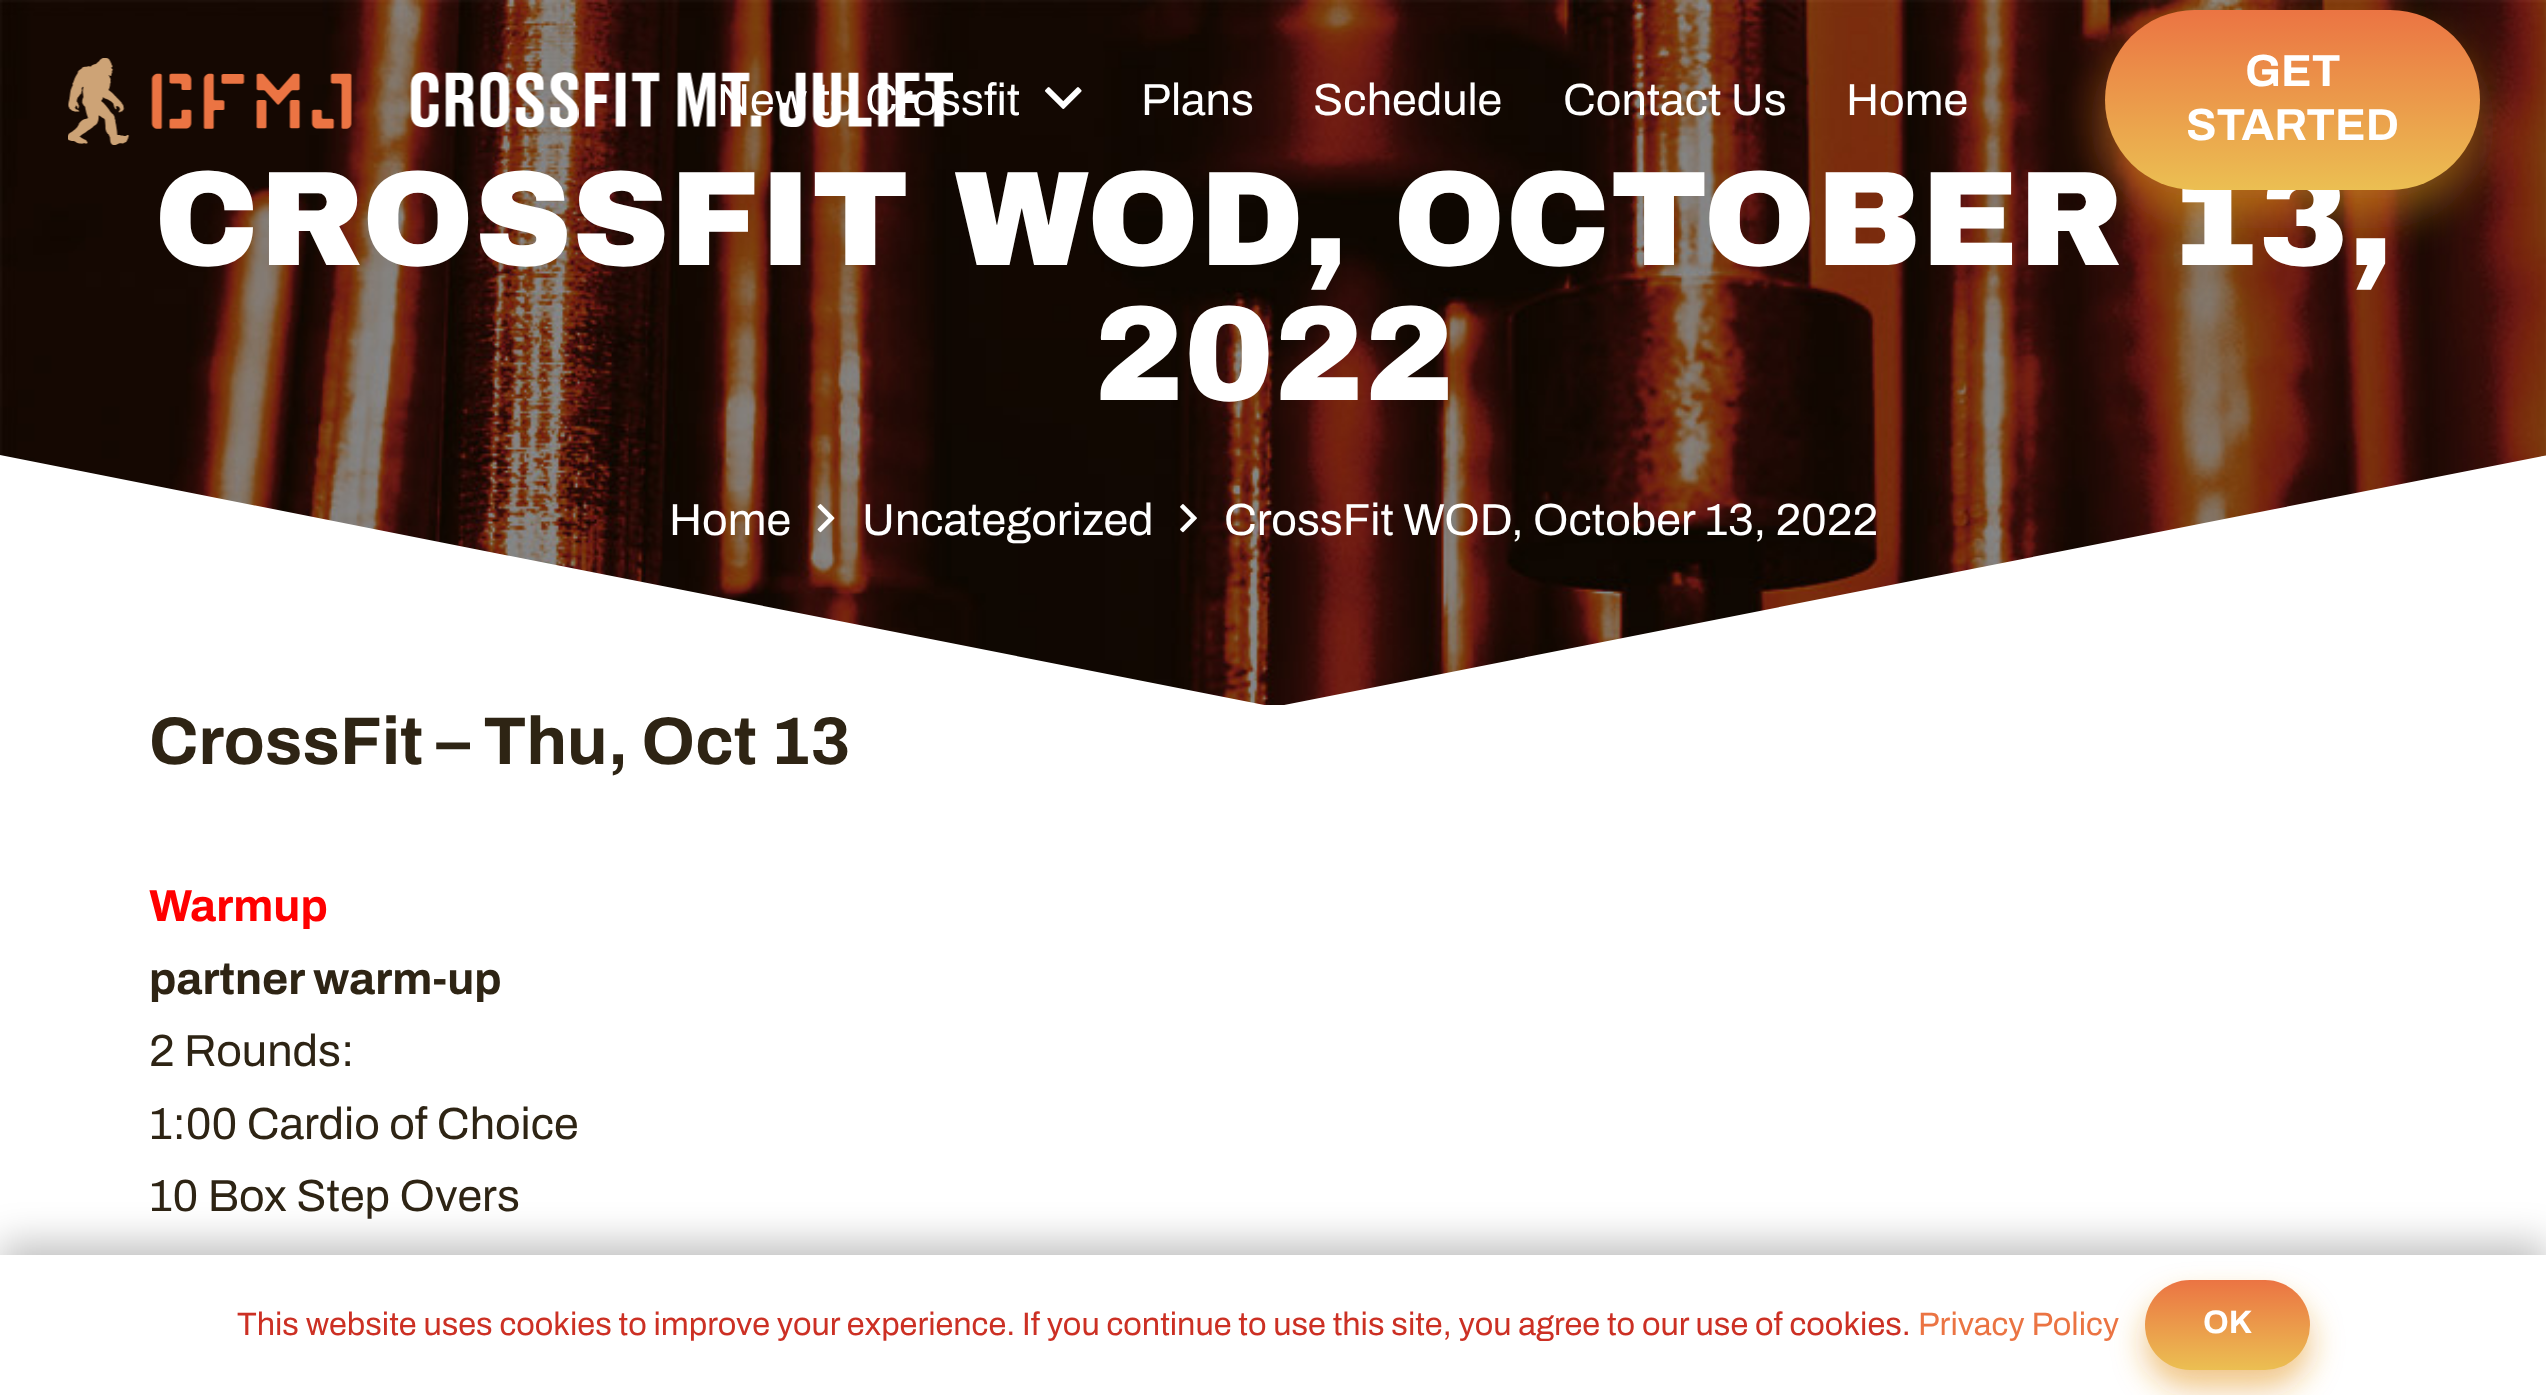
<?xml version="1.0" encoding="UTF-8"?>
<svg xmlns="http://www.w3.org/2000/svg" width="2546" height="1395">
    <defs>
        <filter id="blur1" x="-50%" y="-200%" width="200%" height="500%"><feGaussianBlur stdDeviation="22.5"/></filter>
        <linearGradient id="g1" gradientUnits="userSpaceOnUse" x1="2293" y1="10" x2="2293" y2="190"><stop offset="0" stop-color="#EB7443"/><stop offset="1" stop-color="#EBBF52"/></linearGradient>
        <clipPath id="clip1"><rect x="0" y="455" width="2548" height="253"/></clipPath>
        <filter id="blur2" x="-50%" y="-200%" width="200%" height="500%"><feGaussianBlur stdDeviation="19"/></filter>
        <filter id="blur3" x="-50%" y="-200%" width="200%" height="500%"><feGaussianBlur stdDeviation="16"/></filter>
        <linearGradient id="g2" gradientUnits="userSpaceOnUse" x1="2228" y1="1280" x2="2228" y2="1370"><stop offset="0" stop-color="#EB7443"/><stop offset="1" stop-color="#EBBF52"/></linearGradient>
    </defs>
    <rect width="100%" height="100%" fill="#FFFFFF"/>
    <image x="0" y="0" width="2546" height="705" href="img_03.png"/>
    <image x="68" y="58" width="885" height="87" href="img_01.png"/>
    <text x="717" y="115" font-family="Archivo" font-size="45" fill="#FFFFFF">New to Crossfit</text>
    <image x="1045" y="87" width="37" height="22" href="img_02.png"/>
    <text x="1141" y="115" font-family="Archivo" font-size="45" fill="#FFFFFF">Plans</text>
    <text x="1313" y="115" font-family="Archivo" font-size="45" fill="#FFFFFF">Schedule</text>
    <text x="1563" y="115" font-family="Archivo" font-size="45" fill="#FFFFFF">Contact Us</text>
    <text x="1846" y="115" font-family="Archivo" font-size="45" fill="#FFFFFF">Home</text>
    <rect x="2105" y="33" width="375" height="180" rx="90" fill="#E3961B" fill-opacity="0.55" filter="url(#blur1)"/>
    <text x="154" y="265" font-family="Archivo Black" font-size="135" font-weight="900" fill="#FFFFFF">CROSSFIT WOD, OCTOBER 13,</text>
    <rect x="2105" y="10" width="375" height="180" rx="90" fill="url(#g1)"/>
    <text x="2245" y="86" font-family="Archivo" font-size="45" font-weight="700" fill="#FFFFFF">GET</text>
    <text x="2186" y="140" font-family="Archivo" font-size="45" font-weight="700" fill="#FFFFFF">STARTED</text>
    <text x="1094" y="400" font-family="Archivo Black" font-size="135" font-weight="900" fill="#FFFFFF">2022</text>
    <g clip-path="url(#clip1)">
        <path d="M 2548 710 H 0 V 455 L 1274 707 L 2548 455 Z" fill="#FFFFFF"/>
    </g>
    <text x="669" y="535" font-family="Archivo" font-size="45" fill="#FFFFFF">Home</text>
    <image x="817" y="504" width="18" height="29" href="img_04.png"/>
    <text x="862" y="535" font-family="Archivo" font-size="45" fill="#FFFFFF">Uncategorized</text>
    <image x="1180" y="504" width="17" height="29" href="img_05.png"/>
    <text x="1224" y="535" font-family="Archivo" font-size="45" fill="#FFFFFF">CrossFit WOD, October 13, 2022</text>
    <text x="149" y="764" font-family="Archivo" font-size="67.5" font-weight="700" fill="#2E2414">CrossFit – Thu, Oct 13</text>
    <text x="149" y="921" font-family="Archivo" font-size="45" font-weight="700" fill="#FF0000">Warmup</text>
    <text x="149" y="994" font-family="Archivo" font-size="45" font-weight="700" fill="#2E2414">partner warm-up</text>
    <text font-family="Archivo" font-size="45" fill="#2E2414">
        <tspan x="149" y="1066">2 Rounds:</tspan>
        <tspan x="149" y="1139">1:00 Cardio of Choice</tspan>
        <tspan x="149" y="1211">10 Box Step Overs</tspan>
    </text>
    <rect x="0" y="1243" width="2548" height="140" fill="#000000" fill-opacity="0.25" filter="url(#blur2)"/>
    <rect x="0" y="1255" width="2546" height="140" fill="#FFFFFF"/>
    <text x="237" y="1335" font-family="Archivo" font-size="32.5" fill="#CC3024">This website uses cookies to improve your experience. If you continue to use this site, you agree to our use of cookies.</text>
    <text x="1918" y="1335" font-family="Archivo" font-size="32.5" fill="#EB7443">Privacy Policy</text>
    <rect x="2145" y="1298" width="165" height="90" rx="45" fill="#E3961B" fill-opacity="0.55" filter="url(#blur3)"/>
    <rect x="2145" y="1280" width="165" height="90" rx="45" fill="url(#g2)"/>
    <text x="2203" y="1333" font-family="Archivo" font-size="32.5" font-weight="700" fill="#FFFFFF">OK</text>
</svg>
